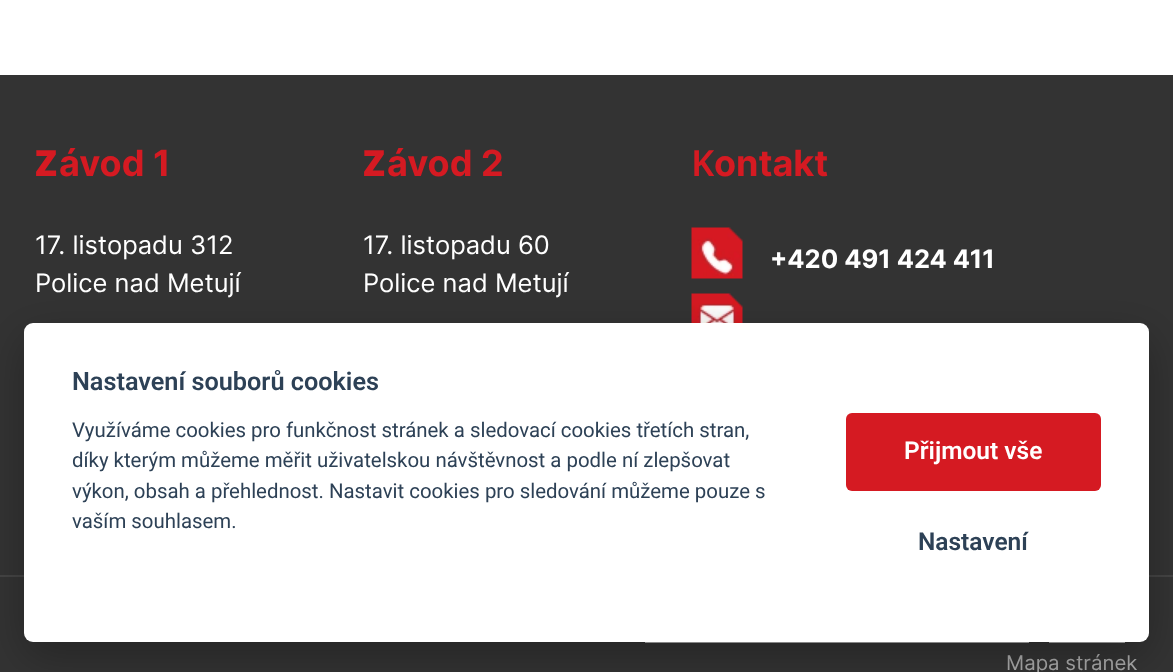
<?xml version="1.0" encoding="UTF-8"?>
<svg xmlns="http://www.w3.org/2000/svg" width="1173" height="672">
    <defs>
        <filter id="blur1" x="-50%" y="-200%" width="200%" height="500%"><feGaussianBlur stdDeviation="22.5"/></filter>
    </defs>
    <rect width="100%" height="100%" fill="#FFFFFF"/>
    <rect x="0" y="75" width="1173" height="597" fill="#333333"/>
    <text x="35" y="176" font-family="Noto Sans" font-size="36" font-weight="900" fill="#D51A22">Z</text>
    <text x="59" y="176" font-family="Inter" font-size="36" font-weight="700" fill="#D51A22">ávod 1</text>
    <text font-family="Inter" font-size="25.5" fill="#FFFFFF">
        <tspan x="35" y="254">17. listopadu 312</tspan>
        <tspan x="35" y="292">Police nad Metují</tspan>
    </text>
    <text x="363" y="176" font-family="Noto Sans" font-size="36" font-weight="900" fill="#D51A22">Z</text>
    <text x="387" y="176" font-family="Inter" font-size="36" font-weight="700" fill="#D51A22">ávod 2</text>
    <text font-family="Inter" font-size="25.5" fill="#FFFFFF">
        <tspan x="363" y="254">17. listopadu 60</tspan>
        <tspan x="363" y="292">Police nad Metují</tspan>
    </text>
    <text x="691" y="176" font-family="Noto Sans" font-size="36" font-weight="600" fill="#D51A22">K</text>
    <text x="714" y="176" font-family="Inter" font-size="36" font-weight="700" fill="#D51A22">ontakt</text>
    <image x="691" y="227" width="52" height="52" href="img_01.png"/>
    <text x="770" y="268" font-family="Inter" font-size="25.5" font-weight="700" fill="#FFFFFF">+420 491 424 411</text>
    <image x="691" y="293" width="52" height="30" href="img_02.png"/>
    <rect x="0" y="575" width="1173" height="2" fill="#444444"/>
    <rect x="645" y="642" width="384" height="1" fill="#AAAAAA"/>
    <rect x="1049" y="642" width="76" height="1" fill="#AAAAAA"/>
    <text x="1006" y="670" font-family="Inter" font-size="20.4" fill="#AAAAAA">Mapa stránek</text>
    <rect x="24" y="338" width="1125" height="319" rx="9" fill="#020203" fill-opacity="0.28" filter="url(#blur1)"/>
    <rect x="24" y="323" width="1125" height="319" rx="9" fill="#FFFFFF"/>
    <text x="72" y="390" font-family="Roboto" font-size="25.25" font-weight="600" fill="#2D4156">Nastavení souborů cookies</text>
    <text font-family="Roboto" font-size="20.4" fill="#2D4156">
        <tspan x="72" y="437">Využíváme cookies pro funkčnost stránek a sledovací cookies třetích stran,</tspan>
        <tspan x="72" y="467">díky kterým můžeme měřit uživatelskou návštěvnost a podle ní zlepšovat</tspan>
        <tspan x="72" y="498">výkon, obsah a přehlednost. Nastavit cookies pro sledování můžeme pouze s</tspan>
        <tspan x="72" y="528">vaším souhlasem.</tspan>
    </text>
    <rect x="846" y="413" width="255" height="78" rx="6" fill="#D51A22"/>
    <text x="904" y="459" font-family="Roboto" font-size="24.5" font-weight="600" fill="#FFFFFF">Přijmout vše</text>
    <text x="918" y="550" font-family="Roboto" font-size="24.5" font-weight="600" fill="#2D4156">Nastavení</text>
</svg>
